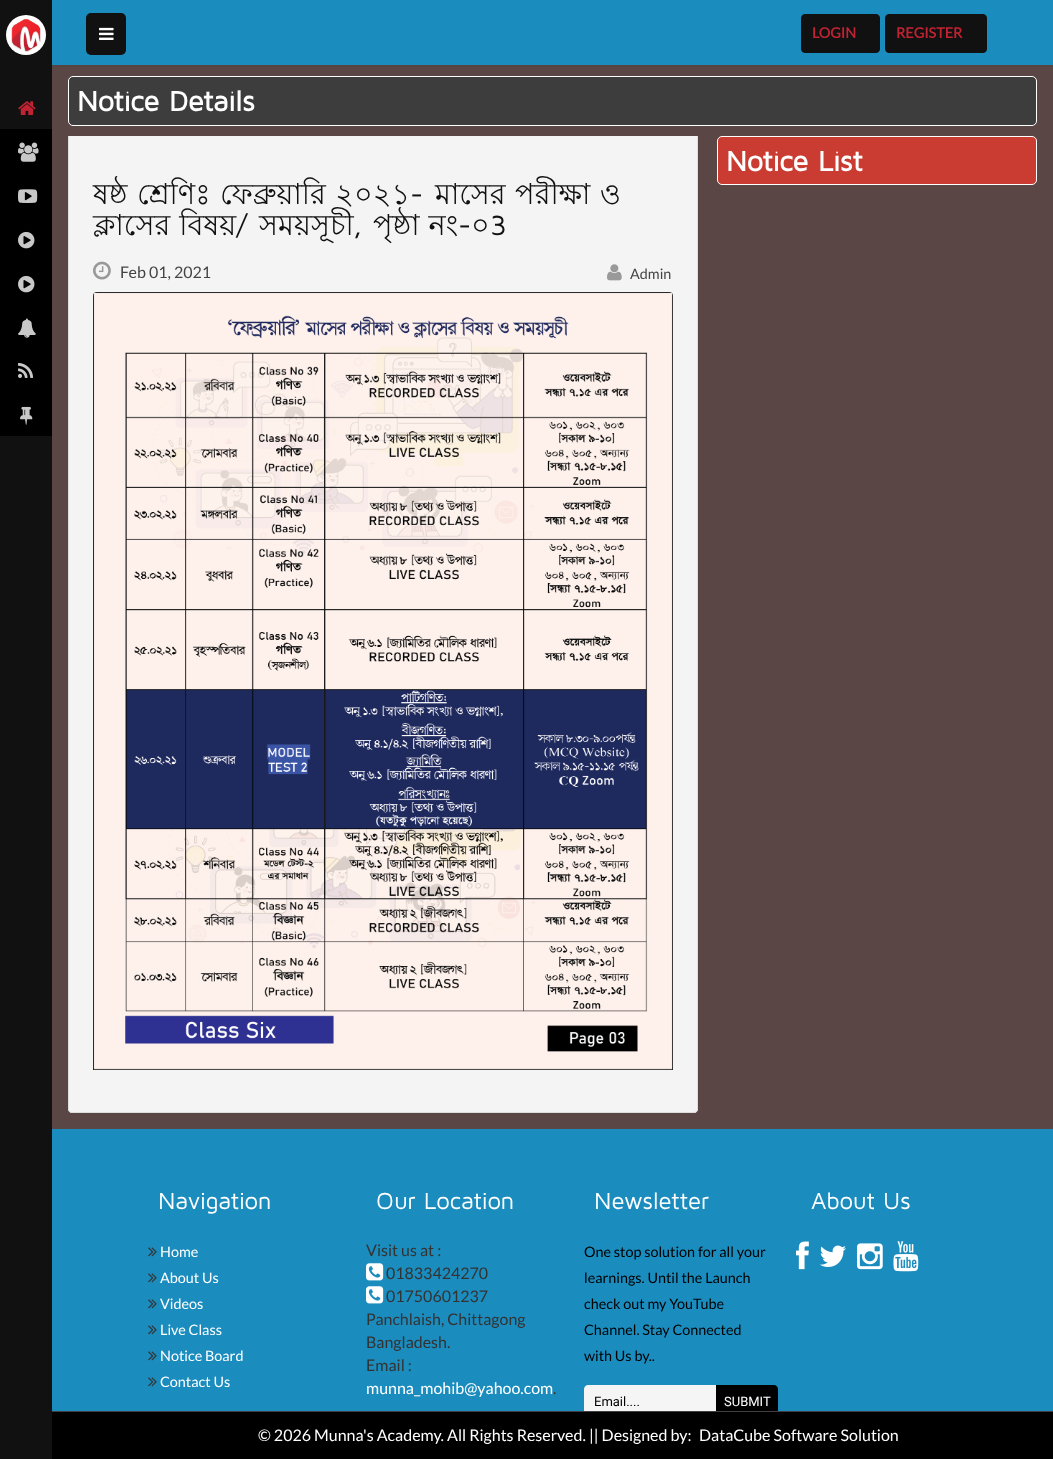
<?xml version="1.0" encoding="UTF-8"?>
<svg xmlns="http://www.w3.org/2000/svg" width="1053" height="1459">
    <defs>
        <filter id="blur1" x="-50%" y="-200%" width="200%" height="500%"><feGaussianBlur stdDeviation="1.5"/></filter>
    </defs>
    <rect width="100%" height="100%" fill="#5A4745"/>
    <rect x="0" y="0" width="52" height="1459" fill="#111111"/>
    <circle cx="26" cy="35" r="20" fill="#FFFFFF"/>
    <image x="11" y="18" width="30" height="34" href="img_01.png"/>
    <rect x="0" y="129" width="52" height="307" fill="#000000"/>
    <image x="18" y="101" width="18" height="14" href="img_02.png"/>
    <image x="18" y="142" width="21" height="20" href="img_03.png"/>
    <image x="18" y="189" width="20" height="14" href="img_04.png"/>
    <image x="18" y="231" width="17" height="18" href="img_05.png"/>
    <image x="18" y="275" width="17" height="18" href="img_05.png"/>
    <image x="18" y="318" width="18" height="20" href="img_06.png"/>
    <image x="18" y="362" width="16" height="16" href="img_07.png"/>
    <image x="20" y="406" width="13" height="19" href="img_08.png"/>
    <rect x="53" y="0" width="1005" height="65" fill="#000000" fill-opacity="0.15" filter="url(#blur1)"/>
    <rect x="52" y="0" width="1001" height="65" fill="#1B8CBE"/>
    <rect x="86" y="13" width="40" height="42" rx="5" fill="#111111"/>
    <image x="99" y="27" width="15" height="13" href="img_09.png"/>
    <rect x="801.5" y="14.5" width="78" height="38" rx="3.5" fill="#111111" stroke="#111111"/>
    <text x="812" y="38" font-family="Lato" font-size="14.4" font-weight="700" fill="#C12332">LOGIN</text>
    <rect x="885.5" y="14.5" width="101" height="38" rx="3.5" fill="#111111" stroke="#111111"/>
    <text x="896" y="38" font-family="Lato" font-size="14.4" font-weight="700" fill="#C12332">REGISTER</text>
    <rect x="68.5" y="76.5" width="968" height="49" rx="4.5" fill="#3E3D3E" stroke="#FFFFFF"/>
    <text x="77" y="111" font-family="Maven Pro" font-size="28.75" font-weight="700" fill="#FFFFFF">Notice Details</text>
    <rect x="717.5" y="136.5" width="319" height="48" rx="4.5" fill="#CA3B31" stroke="#FFFFFF"/>
    <text x="726" y="171" font-family="Maven Pro" font-size="28.75" font-weight="700" fill="#FFFFFF">Notice List</text>
    <path d="M 68 136 H 698 V 1109 C 698 1111 696 1113 694 1113 H 72 C 70 1113 68 1111 68 1109 Z" fill="#F4F4F4"/>
    <path d="M 68 136 H 698 V 1109 C 698 1111 696 1113 694 1113 H 72 C 70 1113 68 1111 68 1109 Z M 69 136 H 697 V 1109 C 697 1111 696 1112 694 1112 H 72 C 70 1112 69 1111 69 1109 Z" fill="#DDDDDD" fill-rule="evenodd"/>
    <text x="93" y="204" word-spacing="1.5" font-family="Lohit Bengali" font-size="28.75" fill="#111111">ষষ্ঠ শ্রেণিঃ ফেব্রুয়ারি ২০২১</text>
    <text x="410" y="204" font-family="Maven Pro" font-size="28.75" fill="#111111">-</text>
    <text x="435" y="204" word-spacing="1.5" font-family="Lohit Bengali" font-size="28.75" fill="#111111">মাসের পরীক্ষা ও</text>
    <text x="93" y="235" word-spacing="1" font-family="Lohit Bengali" font-size="28.75" fill="#111111">ক্লাসের বিষয়</text>
    <text x="236" y="235" font-family="Maven Pro" font-size="28.75" fill="#111111">/</text>
    <text x="259" y="235" font-family="Lohit Bengali" font-size="28.75" fill="#111111">সময়সূচী</text>
    <text x="373" y="235" word-spacing="1" font-family="Lohit Bengali" font-size="28.75" fill="#111111">পৃষ্ঠা নং</text>
    <text x="458" y="235" font-family="Maven Pro" font-size="28.75" fill="#111111">-</text>
    <text x="471" y="235" font-family="Lohit Bengali" font-size="28.75" fill="#111111">০</text>
    <text x="490" y="235" font-family="Maven Pro" font-size="28.75" fill="#111111">3</text>
    <text x="353" y="235" font-family="Maven Pro" font-size="28.75" fill="#111111">,</text>
    <image x="93" y="261" width="18" height="19" href="img_10.png"/>
    <text x="120" y="278" font-family="Lato" font-size="16" fill="#444444">Feb 01, 2021</text>
    <image x="607" y="264" width="15" height="17" href="img_11.png"/>
    <text x="630" y="279" font-family="Lato" font-size="14.4" fill="#444444">Admin</text>
    <image x="93" y="292" width="580" height="778" href="img_12.png"/>
    <rect x="52" y="1129" width="1001" height="282" fill="#1B8CBE"/>
    <text x="158" y="1209" font-family="Maven Pro" font-size="24" fill="#FFFFFF">Navigation</text>
    <image x="148" y="1247" width="9" height="10" href="img_13.png"/>
    <text x="160" y="1257" font-family="Lato" font-size="14.4" fill="#FFFFFF">Home</text>
    <image x="148" y="1273" width="9" height="10" href="img_13.png"/>
    <text x="160" y="1283" font-family="Lato" font-size="14.4" fill="#FFFFFF">About Us</text>
    <image x="148" y="1299" width="9" height="10" href="img_13.png"/>
    <text x="160" y="1309" font-family="Lato" font-size="14.4" fill="#FFFFFF">Videos</text>
    <image x="148" y="1325" width="9" height="10" href="img_13.png"/>
    <text x="160" y="1335" font-family="Lato" font-size="14.4" fill="#FFFFFF">Live Class</text>
    <image x="148" y="1351" width="9" height="10" href="img_13.png"/>
    <text x="160" y="1361" font-family="Lato" font-size="14.4" fill="#FFFFFF">Notice Board</text>
    <image x="148" y="1377" width="9" height="10" href="img_13.png"/>
    <text x="160" y="1387" font-family="Lato" font-size="14.4" fill="#FFFFFF">Contact Us</text>
    <text x="376" y="1209" font-family="Maven Pro" font-size="24" fill="#FFFFFF">Our Location</text>
    <text x="366" y="1256" font-family="Lato" font-size="16" fill="#333333">Visit us at :</text>
    <image x="366" y="1263" width="18" height="18" href="img_14.png"/>
    <text x="386" y="1279" font-family="Lato" font-size="16" fill="#333333">01833424270</text>
    <image x="366" y="1286" width="18" height="18" href="img_14.png"/>
    <text x="386" y="1302" font-family="Lato" font-size="16" fill="#333333">01750601237</text>
    <text font-family="Lato" font-size="16" fill="#333333">
        <tspan x="366" y="1325">Panchlaish, Chittagong</tspan>
        <tspan x="366" y="1348">Bangladesh.</tspan>
        <tspan x="366" y="1371">Email :</tspan>
    </text>
    <text x="366" y="1394" font-family="Lato" font-size="16" fill="#FFFFFF">munna_mohib@yahoo.com</text>
    <text x="553" y="1394" font-family="Lato" font-size="16" fill="#333333">.</text>
    <text x="594" y="1209" font-family="Maven Pro" font-size="24" fill="#FFFFFF">Newsletter</text>
    <text font-family="Lato" font-size="14.4" fill="#000000">
        <tspan x="584" y="1257">One stop solution for all your</tspan>
        <tspan x="584" y="1283">learnings. Until the Launch</tspan>
        <tspan x="584" y="1309">check out my YouTube</tspan>
        <tspan x="584" y="1335">Channel. Stay Connected</tspan>
        <tspan x="584" y="1361">with Us by..</tspan>
    </text>
    <path d="M 588 1385 H 716 V 1419 H 588 C 586 1419 584 1417 584 1415 V 1389 C 584 1387 586 1385 588 1385 Z" fill="#F5F5F5"/>
    <text x="594" y="1406" font-family="Roboto" font-size="13" fill="#000000">Email....</text>
    <path d="M 716 1385 H 774 C 776 1385 778 1387 778 1389 V 1414 C 778 1416 776 1418 774 1418 H 716 Z" fill="#000000"/>
    <text x="724" y="1406" font-family="Roboto" font-size="13" fill="#FFFFFF">SUBMIT</text>
    <text x="811" y="1209" font-family="Maven Pro" font-size="24" fill="#FFFFFF">About Us</text>
    <image x="796" y="1241" width="13" height="29" href="img_15.png"/>
    <image x="820" y="1245" width="26" height="22" href="img_16.png"/>
    <image x="857" y="1243" width="26" height="27" href="img_17.png"/>
    <image x="893" y="1241" width="26" height="31" href="img_18.png"/>
    <rect x="52" y="1412" width="1001" height="47" fill="#000000"/>
    <rect x="52" y="1411" width="1001" height="1" fill="#423D3E"/>
    <text x="258" y="1441" font-family="Lato" font-size="16" fill="#FFFFFF">© 2026 Munna's Academy. All Rights Reserved. || Designed by:</text>
    <text x="699" y="1441" font-family="Lato" font-size="16" fill="#FFFFFF">DataCube Software Solution</text>
</svg>
